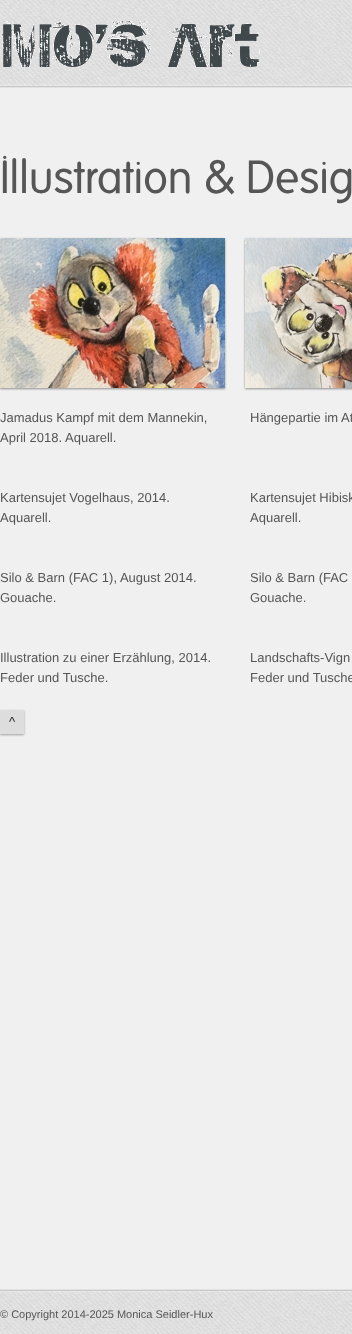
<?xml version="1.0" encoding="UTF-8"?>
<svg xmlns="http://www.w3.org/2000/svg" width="352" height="1334">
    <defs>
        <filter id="blur1" x="-50%" y="-200%" width="200%" height="500%"><feGaussianBlur stdDeviation="1"/></filter>
        <clipPath id="clip1"><path d="M 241 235 H 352 V 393 H 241 Z M 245 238 H 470 V 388 H 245 Z" clip-rule="evenodd"/></clipPath>
    </defs>
    <rect width="100%" height="100%" fill="#F0F0F0"/>
    <image x="0" y="0" width="352" height="88" href="img_01.png"/>
    <image x="2" y="21" width="258" height="46" href="img_02.png"/>
    <text x="0" y="193" font-family="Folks" font-size="45" fill="#565656">Illustration &amp; Desig</text>
    <rect x="0" y="239" width="225" height="150" fill="#8E8E8E" filter="url(#blur1)"/>
    <image x="0" y="238" width="225" height="150" href="img_03.png"/>
    <g clip-path="url(#clip1)">
        <rect x="245" y="239" width="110" height="150" fill="#8E8E8E" filter="url(#blur1)"/>
    </g>
    <image x="245" y="238" width="107" height="150" href="img_04.png"/>
    <text font-family="Liberation Sans" font-size="13" fill="#565656">
        <tspan x="0" y="422">Jamadus Kampf mit dem Mannekin,</tspan>
        <tspan x="0" y="442">April 2018. Aquarell.</tspan>
    </text>
    <text x="250" y="422" font-family="Liberation Sans" font-size="13" fill="#565656">Hängepartie im At</text>
    <text font-family="Liberation Sans" font-size="13" fill="#565656">
        <tspan x="0" y="502">Kartensujet Vogelhaus, 2014.</tspan>
        <tspan x="0" y="522">Aquarell.</tspan>
    </text>
    <text font-family="Liberation Sans" font-size="13" fill="#565656">
        <tspan x="250" y="502">Kartensujet Hibisk</tspan>
        <tspan x="250" y="522">Aquarell.</tspan>
    </text>
    <text font-family="Liberation Sans" font-size="13" fill="#565656">
        <tspan x="0" y="582">Silo &amp; Barn (FAC 1), August 2014.</tspan>
        <tspan x="0" y="602">Gouache.</tspan>
    </text>
    <text font-family="Liberation Sans" font-size="13" fill="#565656">
        <tspan x="250" y="582">Silo &amp; Barn (FAC</tspan>
        <tspan x="250" y="602">Gouache.</tspan>
    </text>
    <text font-family="Liberation Sans" font-size="13" fill="#565656">
        <tspan x="0" y="662">Illustration zu einer Erzählung, 2014.</tspan>
        <tspan x="0" y="682">Feder und Tusche.</tspan>
    </text>
    <text font-family="Liberation Sans" font-size="13" fill="#565656">
        <tspan x="250" y="662">Landschafts-Vign</tspan>
        <tspan x="250" y="682">Feder und Tusche</tspan>
    </text>
    <rect x="0" y="711" width="24" height="24" fill="#9F9F9F" filter="url(#blur1)"/>
    <rect x="0" y="710" width="24" height="24" fill="#DDDDDD"/>
    <text x="9" y="726" font-family="Liberation Sans" font-size="13" fill="#1F1F1F">^</text>
    <image x="0" y="1289" width="352" height="45" href="img_05.png"/>
    <text x="0" y="1318" font-family="Liberation Sans" font-size="11" fill="#565656">© Copyright 2014-2025 Monica Seidler-Hux</text>
</svg>
